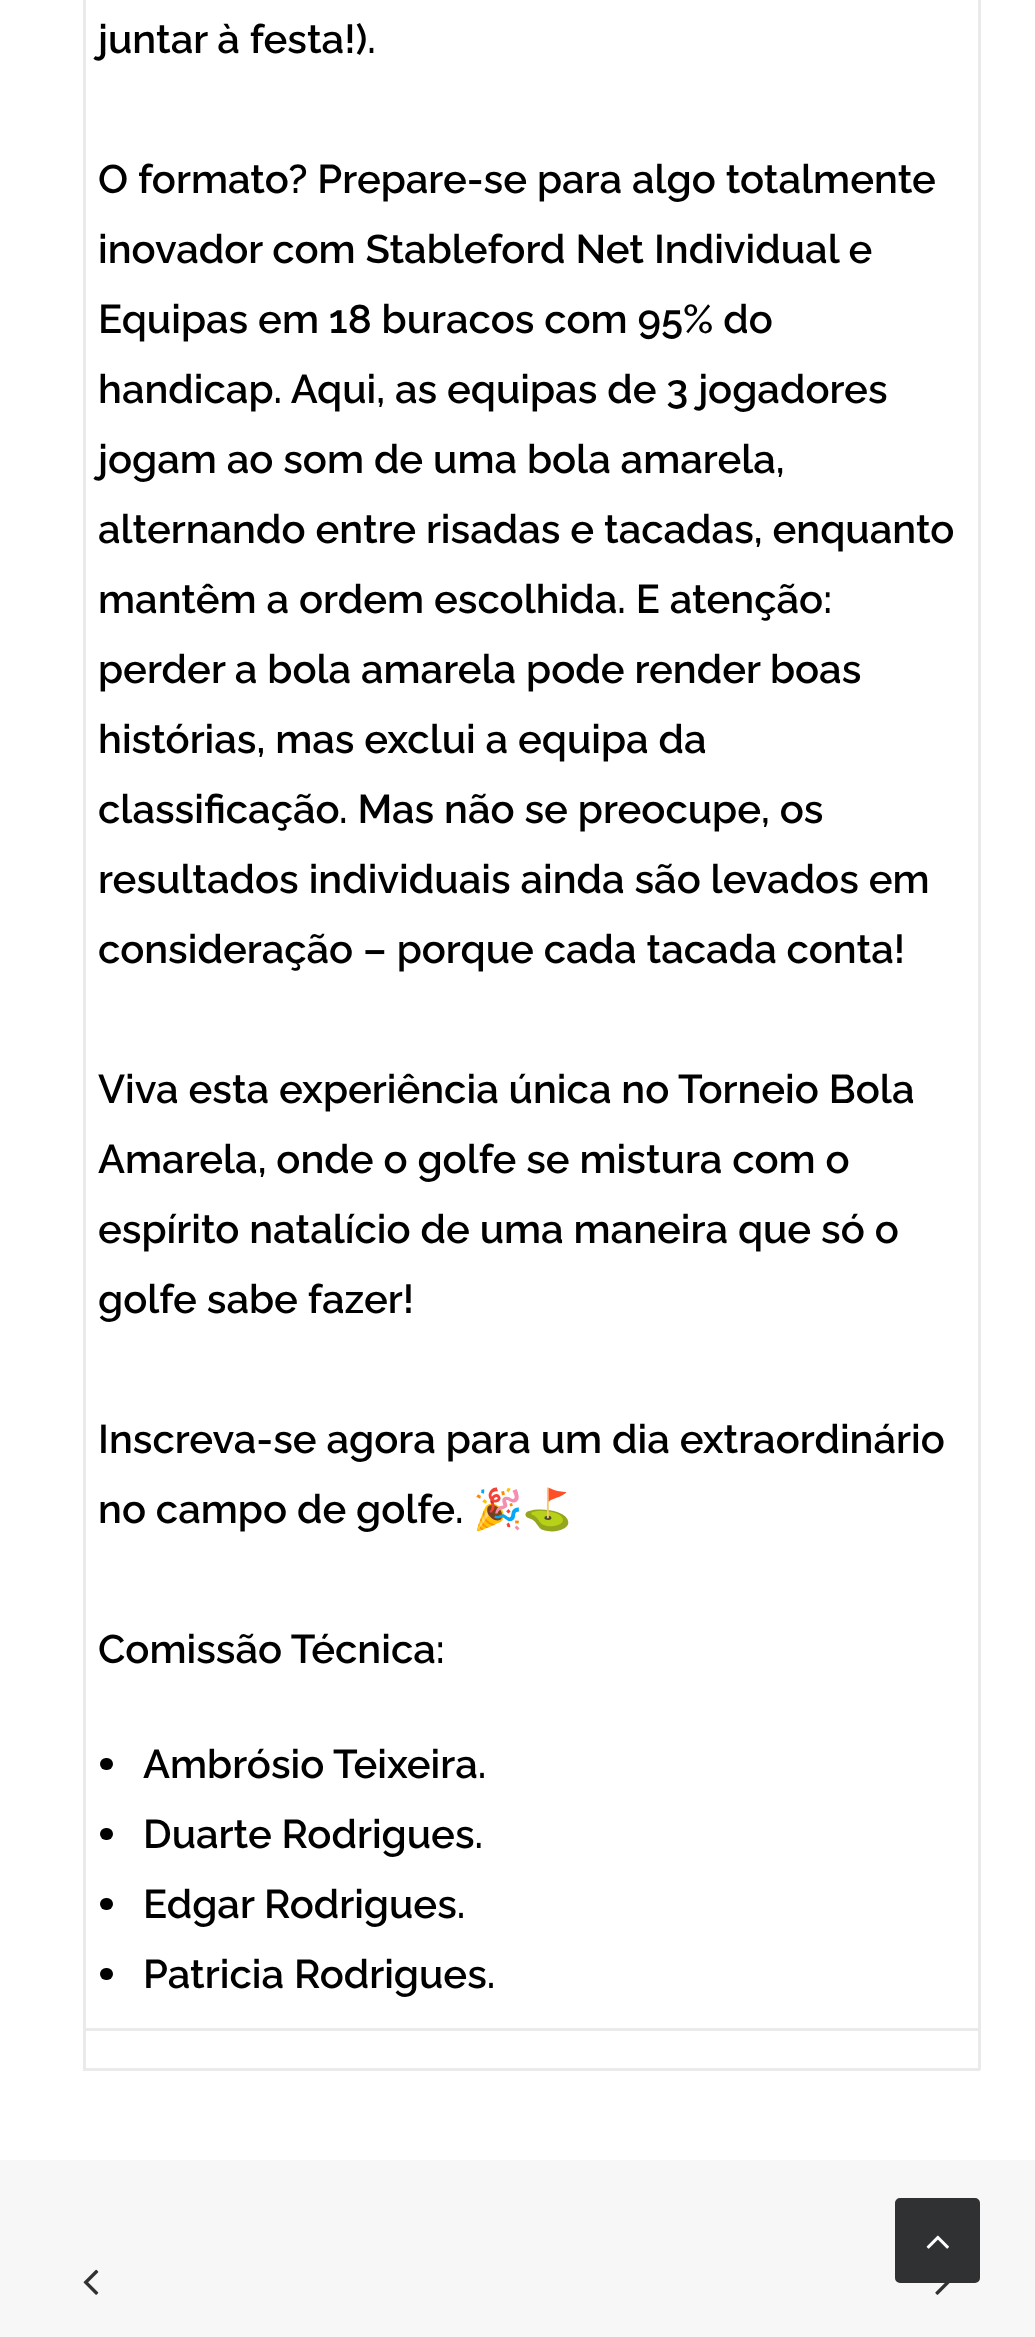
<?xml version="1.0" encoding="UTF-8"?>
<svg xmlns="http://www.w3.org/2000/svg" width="1035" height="2337">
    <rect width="100%" height="100%" fill="#FFFFFF"/>
    <rect x="978" y="0" width="3" height="2070" fill="#EAEAEA"/>
    <rect x="83" y="2068" width="897" height="3" fill="#EAEAEA"/>
    <rect x="83" y="0" width="3" height="2070" fill="#EAEAEA"/>
    <rect x="83" y="2028" width="897" height="3" fill="#EAEAEA"/>
    <text x="98" y="53" font-family="Raleway" font-size="40" font-weight="600" fill="#000000">juntar à festa!).</text>
    <text font-family="Raleway" font-size="40" font-weight="600" fill="#000000">
        <tspan x="98" y="193">O formato? Prepare-se para algo totalmente</tspan>
        <tspan x="98" y="263">inovador com Stableford Net Individual e</tspan>
        <tspan x="98" y="333">Equipas em 18 buracos com 95% do</tspan>
        <tspan x="98" y="403">handicap. Aqui, as equipas de 3 jogadores</tspan>
        <tspan x="98" y="473">jogam ao som de uma bola amarela,</tspan>
        <tspan x="98" y="543">alternando entre risadas e tacadas, enquanto</tspan>
        <tspan x="98" y="613">mantêm a ordem escolhida. E atenção:</tspan>
        <tspan x="98" y="683">perder a bola amarela pode render boas</tspan>
        <tspan x="98" y="753">histórias, mas exclui a equipa da</tspan>
        <tspan x="98" y="823">classificação. Mas não se preocupe, os</tspan>
        <tspan x="98" y="893">resultados individuais ainda são levados em</tspan>
        <tspan x="98" y="963">consideração – porque cada tacada conta!</tspan>
    </text>
    <text font-family="Raleway" font-size="40" font-weight="600" fill="#000000">
        <tspan x="98" y="1103">Viva esta experiência única no Torneio Bola</tspan>
        <tspan x="98" y="1173">Amarela, onde o golfe se mistura com o</tspan>
        <tspan x="98" y="1243">espírito natalício de uma maneira que só o</tspan>
        <tspan x="98" y="1313">golfe sabe fazer!</tspan>
    </text>
    <text font-family="Raleway" font-size="40" font-weight="600" fill="#000000">
        <tspan x="98" y="1453">Inscreva-se agora para um dia extraordinário</tspan>
        <tspan x="98" y="1523">no campo de golfe.</tspan>
    </text>
    <text x="473" y="1523" font-family="Noto Color Emoji" font-size="40" font-weight="700" fill="#000000">🎉⛳️</text>
    <text x="98" y="1663" font-family="Raleway" font-size="40" font-weight="600" fill="#000000">Comissão Técnica:</text>
    <rect x="100" y="1758" width="13" height="12" rx="6" fill="#000000"/>
    <text x="143" y="1778" font-family="Raleway" font-size="40" font-weight="600" fill="#000000">Ambrósio Teixeira.</text>
    <rect x="100" y="1828" width="13" height="12" rx="6" fill="#000000"/>
    <text x="143" y="1848" font-family="Raleway" font-size="40" font-weight="600" fill="#000000">Duarte Rodrigues.</text>
    <rect x="100" y="1898" width="13" height="12" rx="6" fill="#000000"/>
    <text x="143" y="1918" font-family="Raleway" font-size="40" font-weight="600" fill="#000000">Edgar Rodrigues.</text>
    <rect x="100" y="1968" width="13" height="12" rx="6" fill="#000000"/>
    <text x="143" y="1988" font-family="Raleway" font-size="40" font-weight="600" fill="#000000">Patricia Rodrigues.</text>
    <rect x="0" y="2160" width="1035" height="177" fill="#F7F7F7"/>
    <image x="83" y="2269" width="16" height="26" href="img_01.png"/>
    <image x="935" y="2283" width="15" height="12" href="img_02.png"/>
    <rect x="896.5" y="2199.5" width="82" height="82" rx="3.5" fill="#303133" stroke="#303133" stroke-width="3"/>
    <image x="926" y="2235" width="23" height="14" href="img_03.png"/>
</svg>
